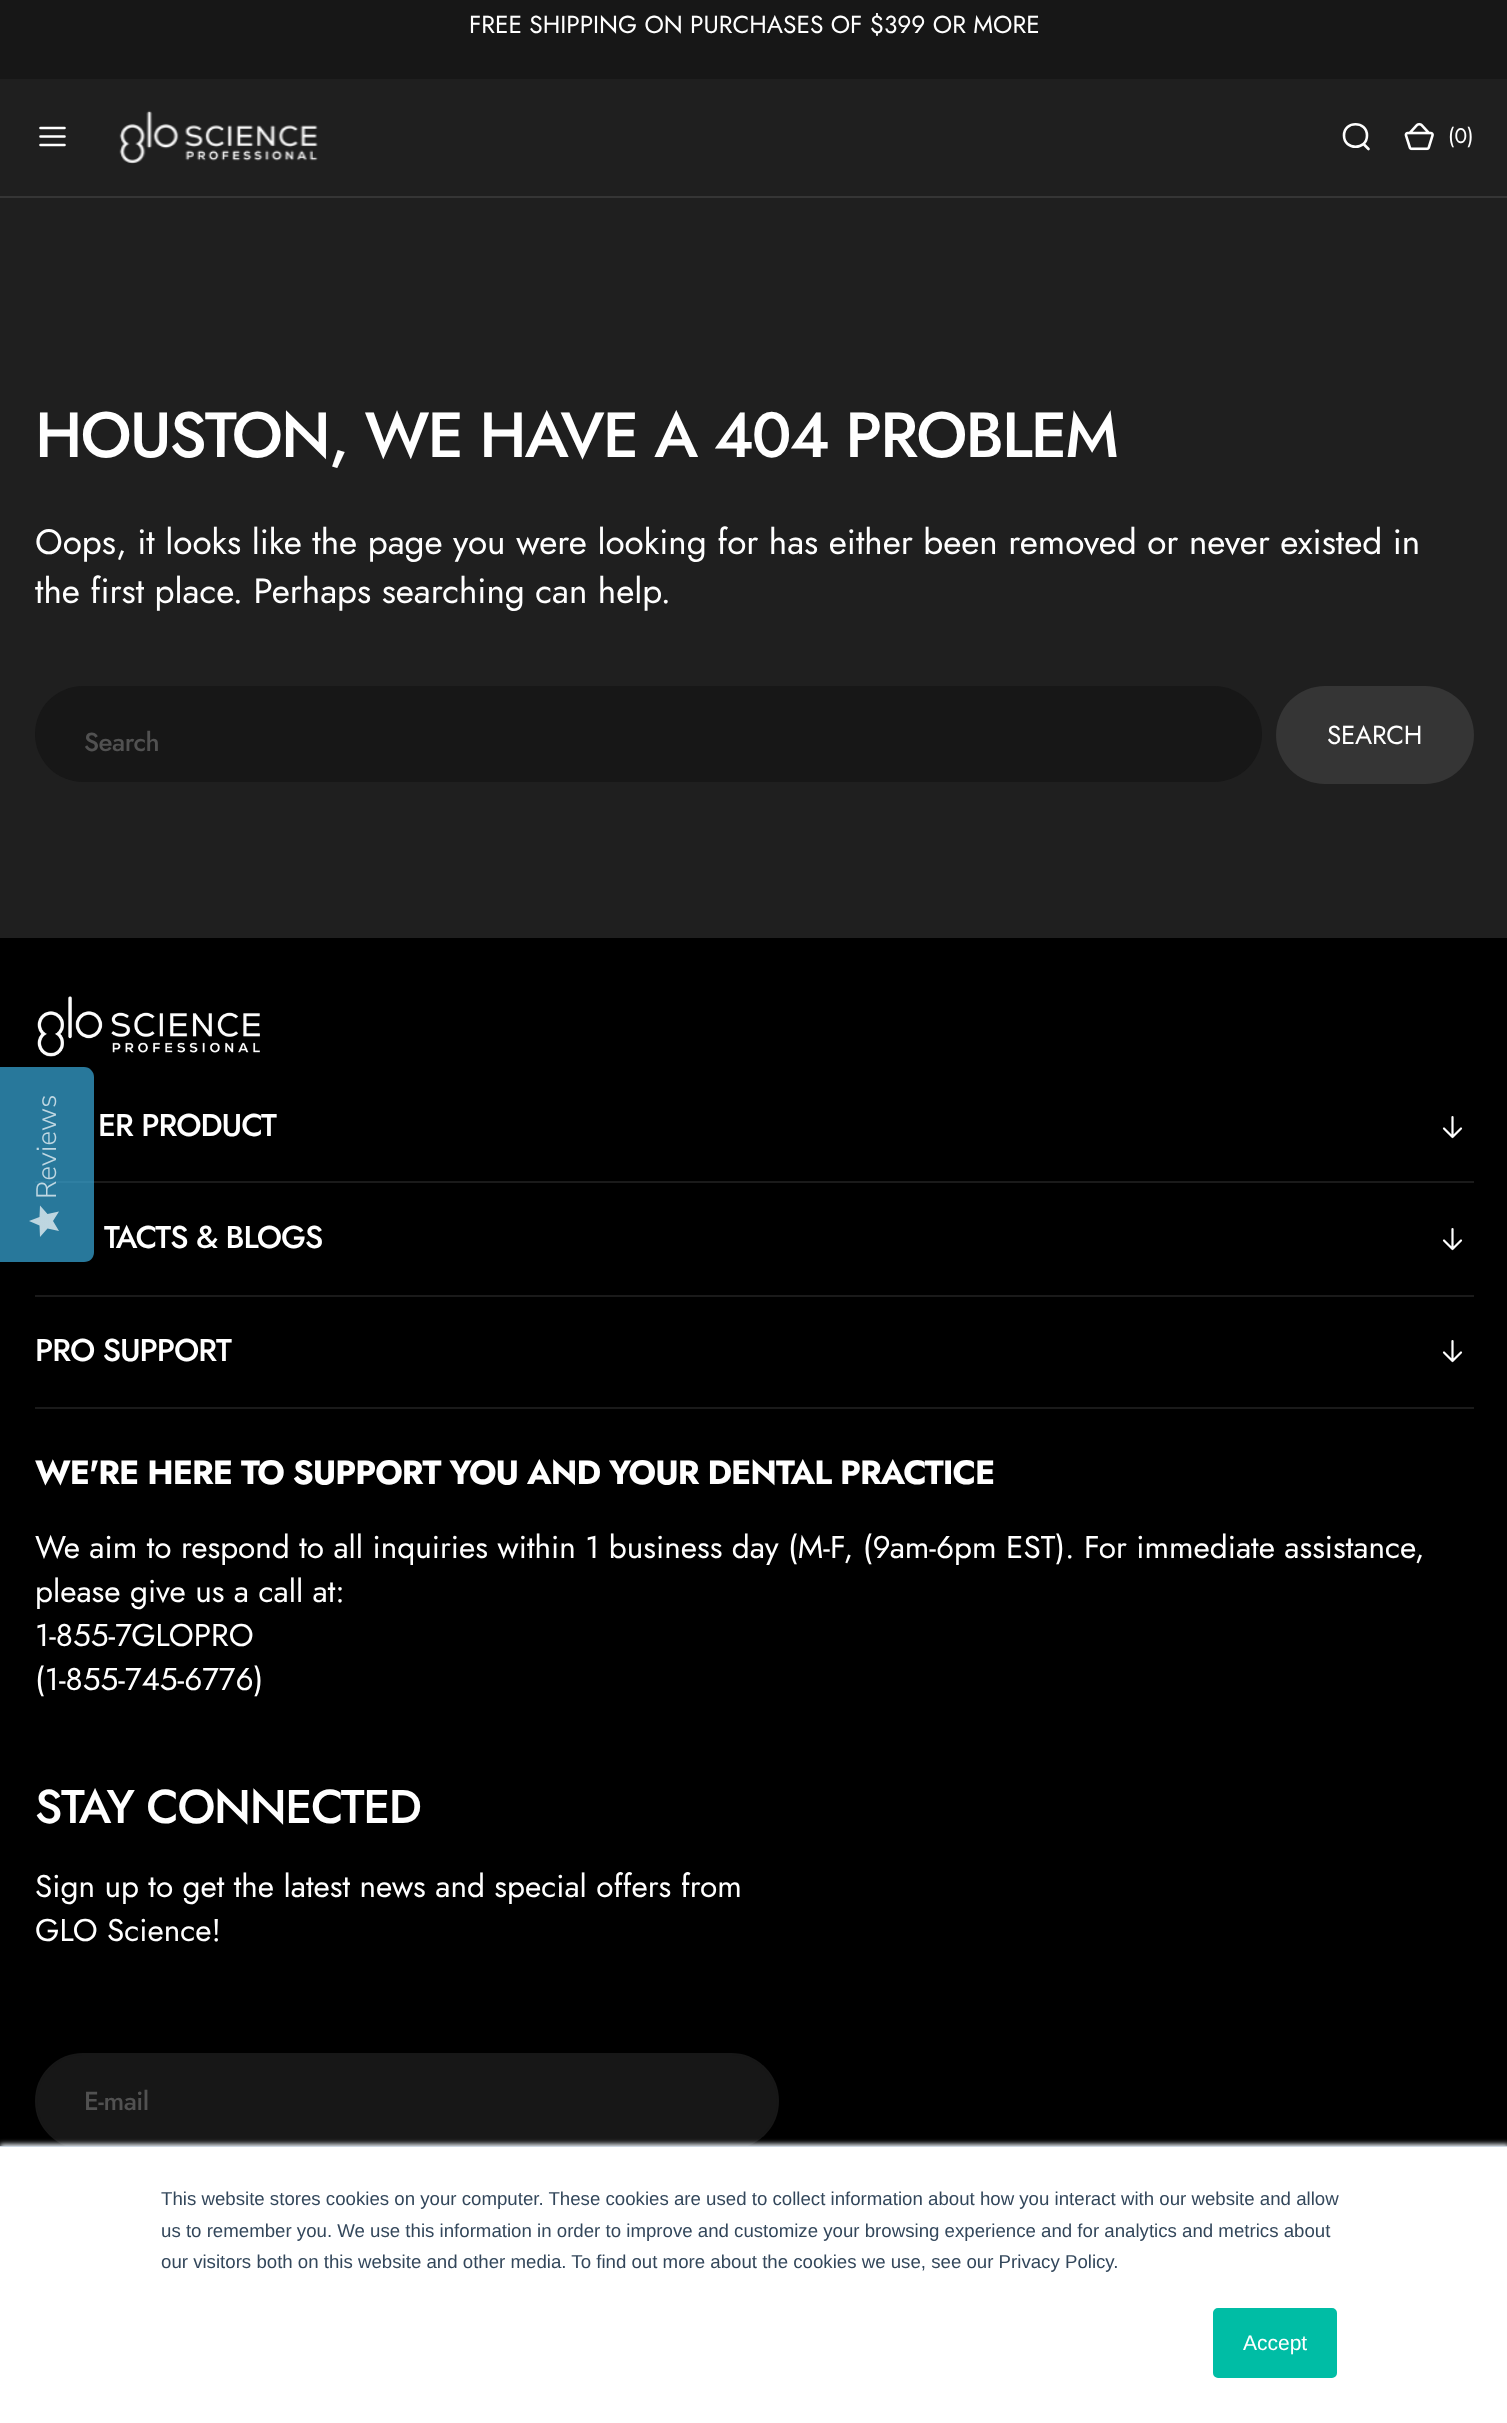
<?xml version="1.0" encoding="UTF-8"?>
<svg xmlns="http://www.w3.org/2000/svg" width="1507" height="2423">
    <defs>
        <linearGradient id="g1" gradientUnits="userSpaceOnUse" x1="29" y1="1237" x2="29" y2="1205"><stop offset="1" stop-color="#FEFEFE" stop-opacity="0.7"/><stop offset="1" stop-color="#EAEAEA" stop-opacity="0.7"/></linearGradient>
        <filter id="blur1" x="-50%" y="-200%" width="200%" height="500%"><feGaussianBlur stdDeviation="2.5"/></filter>
    </defs>
    <rect width="100%" height="100%" fill="#1F1F1F"/>
    <rect x="0" y="0" width="1507" height="79" fill="#171717"/>
    <text x="469" y="33" font-family="Jost" font-size="24.5" fill="#FFFFFF">FREE SHIPPING ON PURCHASES OF $399 OR MORE</text>
    <rect x="0" y="196" width="1507" height="2" fill="#353535"/>
    <path d="M 40.5 136.5 H 64.5 M 40.5 128 H 64.5 M 40.5 145 H 64.5" fill="none" stroke="#FFFFFF" stroke-width="2.6" stroke-linecap="round" stroke-linejoin="round"/>
    <image x="119" y="110" width="199" height="54" href="img_01.png"/>
    <path d="M 1363.5 144 L 1368.5 149 M 1367 135.5 C 1367 150.5 1344 150.5 1344 135.5 C 1344 120.5 1367 120.5 1367 135.5 Z" fill="none" stroke="#FFFFFF" stroke-width="2.6" stroke-linecap="round"/>
    <image x="1404" y="122" width="30" height="29" href="img_02.png"/>
    <text x="1448" y="143" font-family="Jost" font-size="21" fill="#FFFFFF">(0)</text>
    <text x="35" y="457" font-family="Jost" font-size="63.75" font-weight="500" letter-spacing="-1.9" fill="#FFFFFF">HOUSTON, WE HAVE A 404 PROBLEM</text>
    <text font-family="Jost" font-size="35.05" fill="#FFFFFF">
        <tspan x="35" y="554">Oops, it looks like the page you were looking for has either been removed or never existed in</tspan>
        <tspan x="35" y="603">the first place. Perhaps searching can help.</tspan>
    </text>
    <rect x="35" y="686" width="1227" height="96" rx="48" fill="#171717"/>
    <text x="84" y="751" font-family="Jost" font-size="26" font-weight="500" letter-spacing="-0.5" fill="#515151">Search</text>
    <rect x="1276" y="686" width="198" height="98" rx="49" fill="#353535"/>
    <text x="1327" y="744" font-family="Jost" font-size="26" letter-spacing="-0.25" fill="#FFFFFF">SEARCH</text>
    <rect x="0" y="938" width="1507" height="1208" fill="#000000"/>
    <rect x="35" y="1181" width="1439" height="2" fill="#1A1A1A"/>
    <path d="M 0 1262 V 1067 H 84 C 90 1067 94 1072 94 1077 V 1252 C 94 1258 90 1262 84 1262 Z" fill="#39ABDD" fill-opacity="0.7"/>
    <text x="56" y="1199" transform="rotate(-90 56 1199)" font-family="Nunito Sans" font-size="28" font-weight="300" fill="#BFD7E2">Reviews</text>
    <path d="M 53 1221 L 59 1211.5 L 47.5 1214 L 40 1205.5 L 39.5 1217 L 29 1221 L 39.5 1225.5 L 40 1237 L 47.5 1228.5 L 59 1231 Z" fill="url(#g1)"/>
    <image x="37" y="996" width="223" height="61" href="img_03.png"/>
    <text x="98" y="1136" font-family="Jost" font-size="31.5" font-weight="500" letter-spacing="-1" fill="#FFFFFF">ER PRODUCT</text>
    <path d="M 1461 1128.5 L 1452.5 1137 M 1452.5 1137 L 1444 1128.5 M 1452.5 1137 V 1117" fill="none" stroke="#FFFFFF" stroke-width="2.2" stroke-linecap="round" stroke-linejoin="round"/>
    <rect x="35" y="1295" width="1439" height="2" fill="#1A1A1A"/>
    <text x="104" y="1248" font-family="Jost" font-size="31.5" font-weight="500" letter-spacing="-1" fill="#FFFFFF">TACTS &amp; BLOGS</text>
    <path d="M 1461 1240.5 L 1452.5 1249 M 1452.5 1249 L 1444 1240.5 M 1452.5 1249 V 1229" fill="none" stroke="#FFFFFF" stroke-width="2.2" stroke-linecap="round" stroke-linejoin="round"/>
    <rect x="35" y="1407" width="1439" height="2" fill="#1A1A1A"/>
    <text x="35" y="1361" font-family="Jost" font-size="31.5" font-weight="500" letter-spacing="-1" fill="#FFFFFF">PRO SUPPORT</text>
    <path d="M 1461 1352.5 L 1452.5 1361 M 1452.5 1361 L 1444 1352.5 M 1452.5 1361 V 1341" fill="none" stroke="#FFFFFF" stroke-width="2.2" stroke-linecap="round" stroke-linejoin="round"/>
    <text x="35" y="1484" font-family="Jost" font-size="33.6" font-weight="700" letter-spacing="-1" fill="#FFFFFF">WE'RE HERE TO SUPPORT YOU AND YOUR DENTAL PRACTICE</text>
    <text font-family="Jost" font-size="31.5" fill="#FFFFFF">
        <tspan x="35" y="1558">We aim to respond to all inquiries within 1 business day (M-F, (9am-6pm EST). For immediate assistance,</tspan>
        <tspan x="35" y="1602">please give us a call at:</tspan>
        <tspan x="35" y="1646">1-855-7GLOPRO</tspan>
        <tspan x="35" y="1690">(1-855-745-6776)</tspan>
    </text>
    <text x="35" y="1823" font-family="Jost" font-size="47.25" font-weight="500" letter-spacing="-1.4" fill="#FFFFFF">STAY CONNECTED</text>
    <text font-family="Jost" font-size="31.5" fill="#FFFFFF">
        <tspan x="35" y="1897">Sign up to get the latest news and special offers from</tspan>
        <tspan x="35" y="1941">GLO Science!</tspan>
    </text>
    <rect x="36" y="2054" width="742" height="94" rx="47" fill="#171717" stroke="#171717" stroke-width="2"/>
    <text x="84" y="2110" font-family="Jost" font-size="26" font-weight="500" letter-spacing="-0.5" fill="#515151">E-mail</text>
    <rect x="0" y="2144" width="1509" height="278" fill="#EAF0F6" filter="url(#blur1)"/>
    <rect x="0" y="2146" width="1507" height="1" fill="#CBD6E2"/>
    <rect x="0" y="2147" width="1507" height="276" fill="#FFFFFF"/>
    <text font-family="Liberation Sans" font-size="18.67" fill="#33475B">
        <tspan x="161" y="2205">This website stores cookies on your computer. These cookies are used to collect information about how you interact with our website and allow</tspan>
        <tspan x="161" y="2237">us to remember you. We use this information in order to improve and customize your browsing experience and for analytics and metrics about</tspan>
        <tspan x="161" y="2268">our visitors both on this website and other media. To find out more about the cookies we use, see our Privacy Policy.</tspan>
    </text>
    <rect x="1214" y="2309" width="122" height="68" rx="4" fill="#00BDA5" stroke="#00BDA5" stroke-width="2"/>
    <text x="1243" y="2350" font-family="Liberation Sans" font-size="21" fill="#FFFFFF">Accept</text>
</svg>
